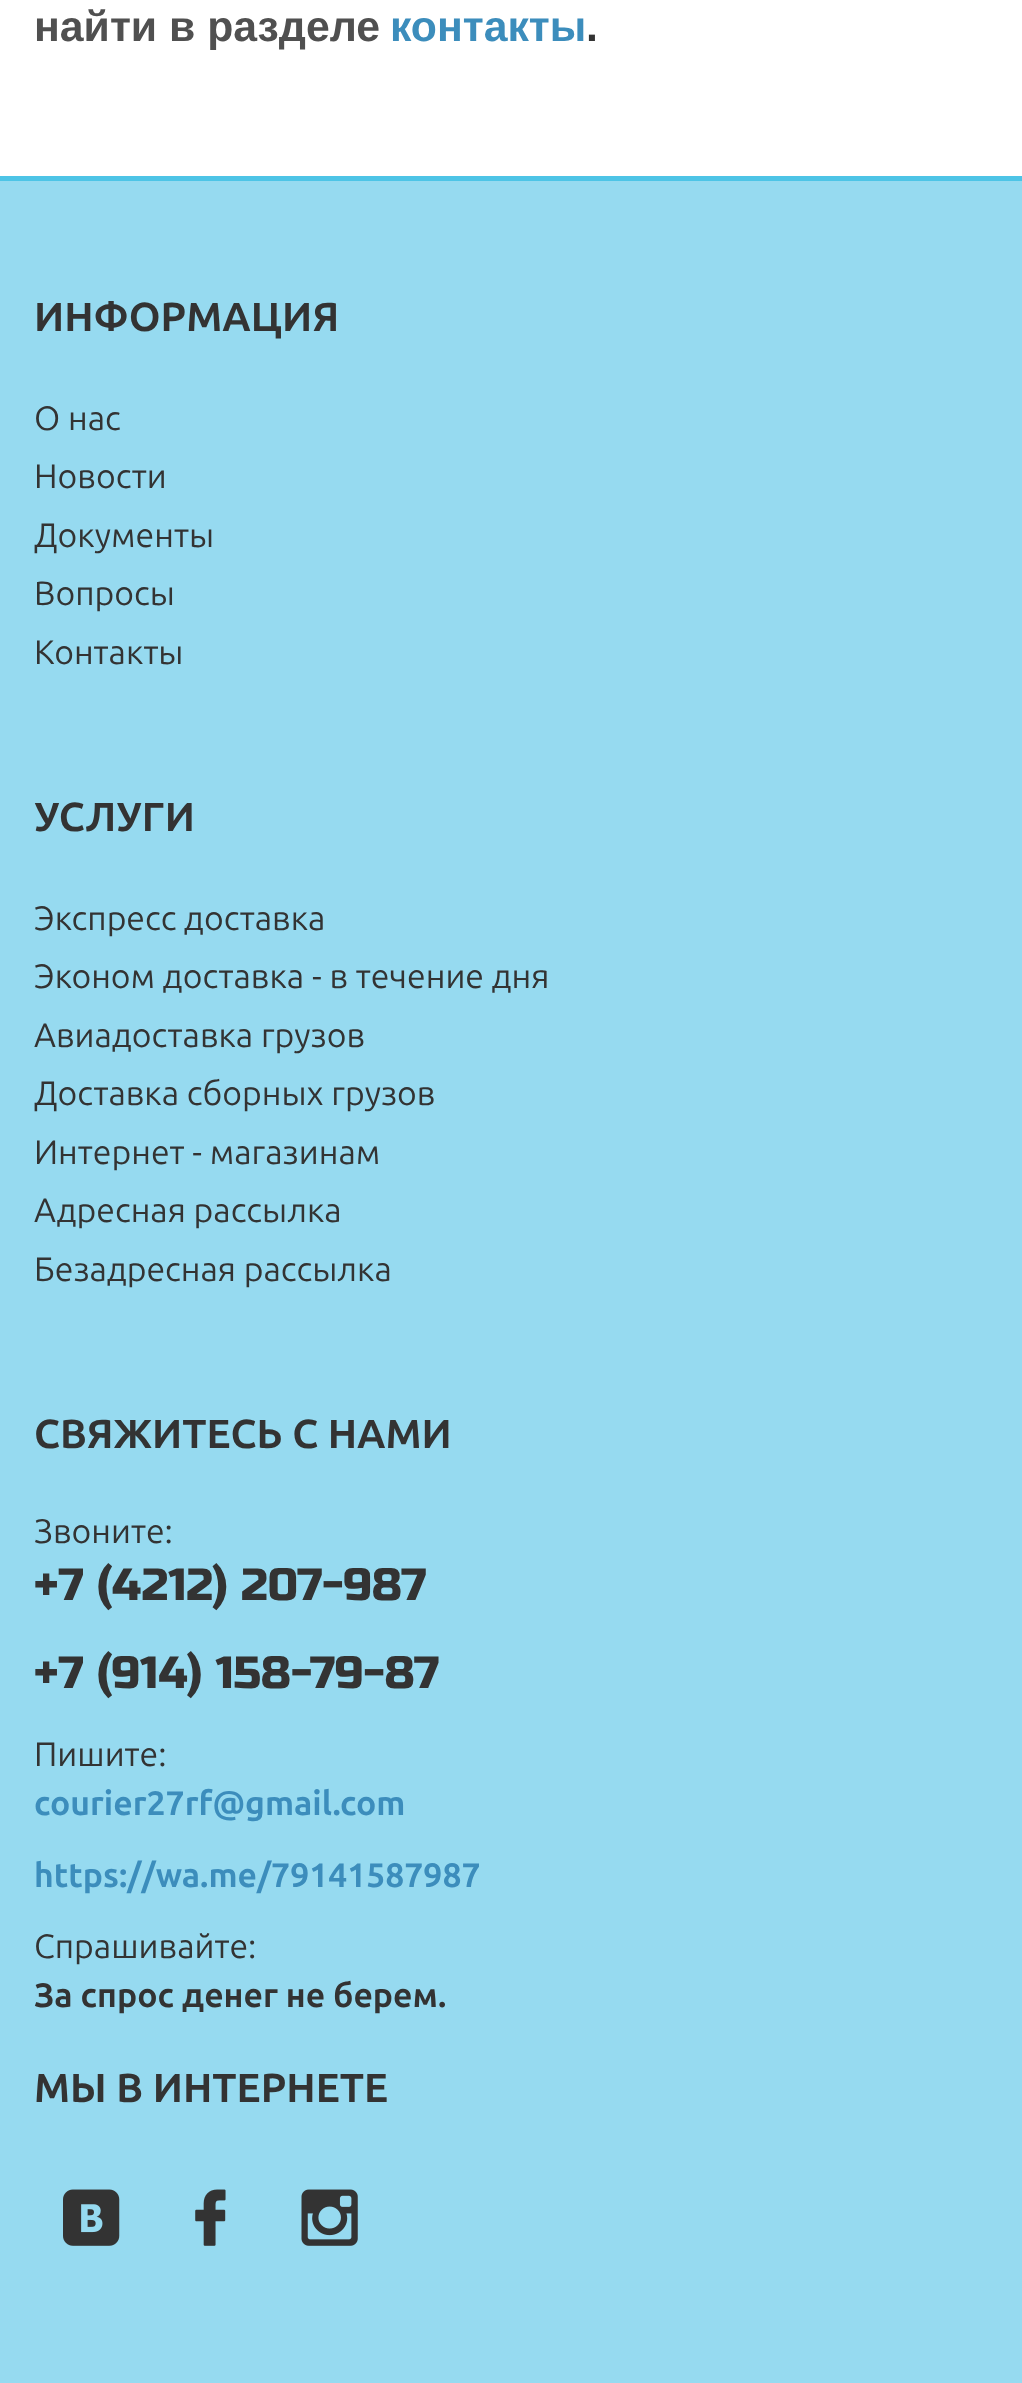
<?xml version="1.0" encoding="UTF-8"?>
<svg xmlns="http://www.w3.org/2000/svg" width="1022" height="2383">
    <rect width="100%" height="100%" fill="#FFFFFF"/>
    <text x="34" y="41" font-family="Liberation Sans" font-size="42.75" font-weight="700" fill="#505050">найти в разделе</text>
    <text x="390" y="41" font-family="Liberation Sans" font-size="42.75" font-weight="700" fill="#3C8DBC">контакты</text>
    <text x="586" y="41" font-family="Liberation Sans" font-size="42.75" font-weight="700" fill="#333333">.</text>
    <rect x="0" y="181" width="1022" height="2202" fill="#96DAF0"/>
    <rect x="0" y="176" width="1022" height="5" fill="#4DC4E6"/>
    <text x="34" y="331" font-family="Ubuntu" font-size="40.5" font-weight="700" fill="#333333">ИНФОРМАЦИЯ</text>
    <text font-family="Ubuntu" font-size="33.75" fill="#333333">
        <tspan x="34" y="430">О нас</tspan>
        <tspan x="34" y="488">Новости</tspan>
        <tspan x="34" y="547">Документы</tspan>
        <tspan x="34" y="605">Вопросы</tspan>
        <tspan x="34" y="664">Контакты</tspan>
    </text>
    <text x="34" y="831" font-family="Ubuntu" font-size="40.5" font-weight="700" fill="#333333">УСЛУГИ</text>
    <text font-family="Ubuntu" font-size="33.75" fill="#333333">
        <tspan x="34" y="930">Экспресс доставка</tspan>
        <tspan x="34" y="988">Эконом доставка - в течение дня</tspan>
        <tspan x="34" y="1047">Авиадоставка грузов</tspan>
        <tspan x="34" y="1105">Доставка сборных грузов</tspan>
        <tspan x="34" y="1164">Интернет - магазинам</tspan>
        <tspan x="34" y="1222">Адресная рассылка</tspan>
        <tspan x="34" y="1281">Безадресная рассылка</tspan>
    </text>
    <text x="34" y="1448" font-family="Ubuntu" font-size="40.5" font-weight="700" fill="#333333">СВЯЖИТЕСЬ С НАМИ</text>
    <text x="34" y="1543" font-family="Ubuntu" font-size="33.75" fill="#333333">Звоните:</text>
    <text font-family="Russo One" font-size="45" fill="#333333">
        <tspan x="34" y="1600">+7 (4212) 207-987</tspan>
        <tspan x="34" y="1688">+7 (914) 158-79-87</tspan>
    </text>
    <text x="34" y="1766" font-family="Ubuntu" font-size="33.75" fill="#333333">Пишите:</text>
    <text x="34" y="1815" font-family="Ubuntu" font-size="33.75" font-weight="700" fill="#3C8DBC">courier27rf@gmail.com</text>
    <text x="34" y="1887" font-family="Ubuntu" font-size="33.75" font-weight="700" fill="#3C8DBC">https://wa.me/79141587987</text>
    <text x="34" y="1958" font-family="Ubuntu" font-size="33.75" fill="#333333">Спрашивайте:</text>
    <text x="34" y="2007" font-family="Ubuntu" font-size="33.75" font-weight="700" fill="#333333">За спрос денег не берем.</text>
    <text x="34" y="2102" font-family="Ubuntu" font-size="40.5" font-weight="700" fill="#333333">МЫ В ИНТЕРНЕТЕ</text>
    <image x="63" y="2189" width="57" height="57" href="img_01.png"/>
    <image x="195" y="2189" width="31" height="57" href="img_02.png"/>
    <image x="301" y="2189" width="57" height="57" href="img_03.png"/>
</svg>
